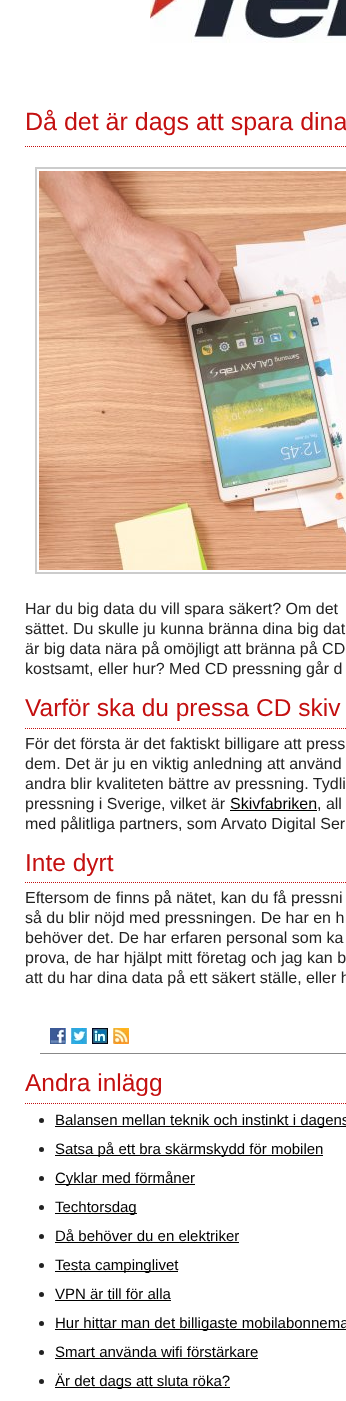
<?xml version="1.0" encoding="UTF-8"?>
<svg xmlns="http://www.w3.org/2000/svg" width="346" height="1401">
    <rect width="100%" height="100%" fill="#FFFFFF"/>
    <image x="150" y="0" width="196" height="43" href="img_01.png"/>
    <path d="M 25 146.5 H 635" fill="none" stroke="#C41010" stroke-dasharray="1 1"/>
    <text x="25" y="130" font-family="Liberation Sans" font-size="25" fill="#C41010">Då det är dags att spara dina</text>
    <rect x="36" y="168" width="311" height="405" fill="none" stroke="#CCCCCC" stroke-width="2"/>
    <image x="39" y="171" width="307" height="399" href="img_02.png"/>
    <text font-family="Liberation Sans" font-size="16" fill="#222222">
        <tspan x="25" y="614">Har du big data du vill spara säkert? Om det</tspan>
        <tspan x="25" y="634">sättet. Du skulle ju kunna bränna dina big dat</tspan>
        <tspan x="25" y="654">är big data nära på omöjligt att bränna på CD</tspan>
        <tspan x="25" y="674">kostsamt, eller hur? Med CD pressning går d</tspan>
    </text>
    <path d="M 25 728.5 H 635" fill="none" stroke="#C41010" stroke-dasharray="1 1"/>
    <text x="25" y="716" font-family="Liberation Sans" font-size="24.5" fill="#C41010">Varför ska du pressa CD skiv</text>
    <text font-family="Liberation Sans" font-size="16" fill="#222222">
        <tspan x="25" y="749">För det första är det faktiskt billigare att press</tspan>
        <tspan x="25" y="769">dem. Det är ju en viktig anledning att använd</tspan>
        <tspan x="25" y="789">andra blir kvaliteten bättre av pressning. Tydli</tspan>
        <tspan x="25" y="809">pressning i Sverige, vilket är</tspan>
    </text>
    <text x="230" y="809" font-family="Liberation Sans" font-size="16" fill="#000000">Skivfabriken</text>
    <rect x="230" y="810" width="87" height="1" fill="#000000"/>
    <text x="317" y="809" font-family="Liberation Sans" font-size="16" fill="#222222">, all</text>
    <text x="25" y="829" font-family="Liberation Sans" font-size="16" fill="#222222">med pålitliga partners, som Arvato Digital Ser</text>
    <path d="M 25 882.5 H 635" fill="none" stroke="#C41010" stroke-dasharray="1 1"/>
    <text x="25" y="871" font-family="Liberation Sans" font-size="24.5" fill="#C41010">Inte dyrt</text>
    <text font-family="Liberation Sans" font-size="16" fill="#222222">
        <tspan x="25" y="903">Eftersom de finns på nätet, kan du få pressni</tspan>
        <tspan x="25" y="923">så du blir nöjd med pressningen. De har en h</tspan>
        <tspan x="25" y="943">behöver det. De har erfaren personal som ka</tspan>
        <tspan x="25" y="963">prova, de har hjälpt mitt företag och jag kan b</tspan>
        <tspan x="25" y="983">att du har dina data på ett säkert ställe, eller h</tspan>
    </text>
    <image x="50" y="1028" width="16" height="16" href="img_03.png"/>
    <image x="71" y="1028" width="16" height="16" href="img_04.png"/>
    <image x="92" y="1028" width="16" height="16" href="img_05.png"/>
    <image x="113" y="1028" width="16" height="16" href="img_06.png"/>
    <rect x="40" y="1053" width="306" height="1" fill="#888888"/>
    <path d="M 25 1103.5 H 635" fill="none" stroke="#C41010" stroke-dasharray="1 1"/>
    <text x="25" y="1091" font-family="Liberation Sans" font-size="24.5" fill="#C41010">Andra inlägg</text>
    <circle cx="41.5" cy="1120.5" r="2.5" fill="#222222"/>
    <rect x="55" y="1126" width="291" height="1" fill="#000000"/>
    <text x="55" y="1125" font-family="Liberation Sans" font-size="15" fill="#000000">Balansen mellan teknik och instinkt i dagens</text>
    <circle cx="41.5" cy="1149.5" r="2.5" fill="#222222"/>
    <rect x="55" y="1155" width="268" height="1" fill="#000000"/>
    <text x="55" y="1154" font-family="Liberation Sans" font-size="15" fill="#000000">Satsa på ett bra skärmskydd för mobilen</text>
    <circle cx="41.5" cy="1178.5" r="2.5" fill="#222222"/>
    <rect x="55" y="1184" width="140" height="1" fill="#000000"/>
    <text x="55" y="1183" font-family="Liberation Sans" font-size="15" fill="#000000">Cyklar med förmåner</text>
    <circle cx="41.5" cy="1207.5" r="2.5" fill="#222222"/>
    <rect x="55" y="1213" width="82" height="1" fill="#000000"/>
    <text x="55" y="1212" font-family="Liberation Sans" font-size="15" fill="#000000">Techtorsdag</text>
    <circle cx="41.5" cy="1236.5" r="2.5" fill="#222222"/>
    <text x="55" y="1241" font-family="Liberation Sans" font-size="15" fill="#000000">Då behöver du en elektriker</text>
    <rect x="55" y="1242" width="184" height="1" fill="#000000"/>
    <circle cx="41.5" cy="1265.5" r="2.5" fill="#222222"/>
    <rect x="55" y="1271" width="123" height="1" fill="#000000"/>
    <text x="55" y="1270" font-family="Liberation Sans" font-size="15" fill="#000000">Testa campinglivet</text>
    <circle cx="41.5" cy="1294.5" r="2.5" fill="#222222"/>
    <text x="55" y="1299" font-family="Liberation Sans" font-size="15" fill="#000000">VPN är till för alla</text>
    <rect x="55" y="1300" width="116" height="1" fill="#000000"/>
    <circle cx="41.5" cy="1323.5" r="2.5" fill="#222222"/>
    <rect x="55" y="1329" width="291" height="1" fill="#000000"/>
    <text x="55" y="1328" font-family="Liberation Sans" font-size="15" fill="#000000">Hur hittar man det billigaste mobilabonnema</text>
    <circle cx="41.5" cy="1352.5" r="2.5" fill="#222222"/>
    <text x="55" y="1357" font-family="Liberation Sans" font-size="15" fill="#000000">Smart använda wifi förstärkare</text>
    <rect x="55" y="1358" width="203" height="1" fill="#000000"/>
    <circle cx="41.5" cy="1381.5" r="2.5" fill="#222222"/>
    <rect x="55" y="1387" width="175" height="1" fill="#000000"/>
    <text x="55" y="1386" font-family="Liberation Sans" font-size="15" fill="#000000">Är det dags att sluta röka?</text>
</svg>
